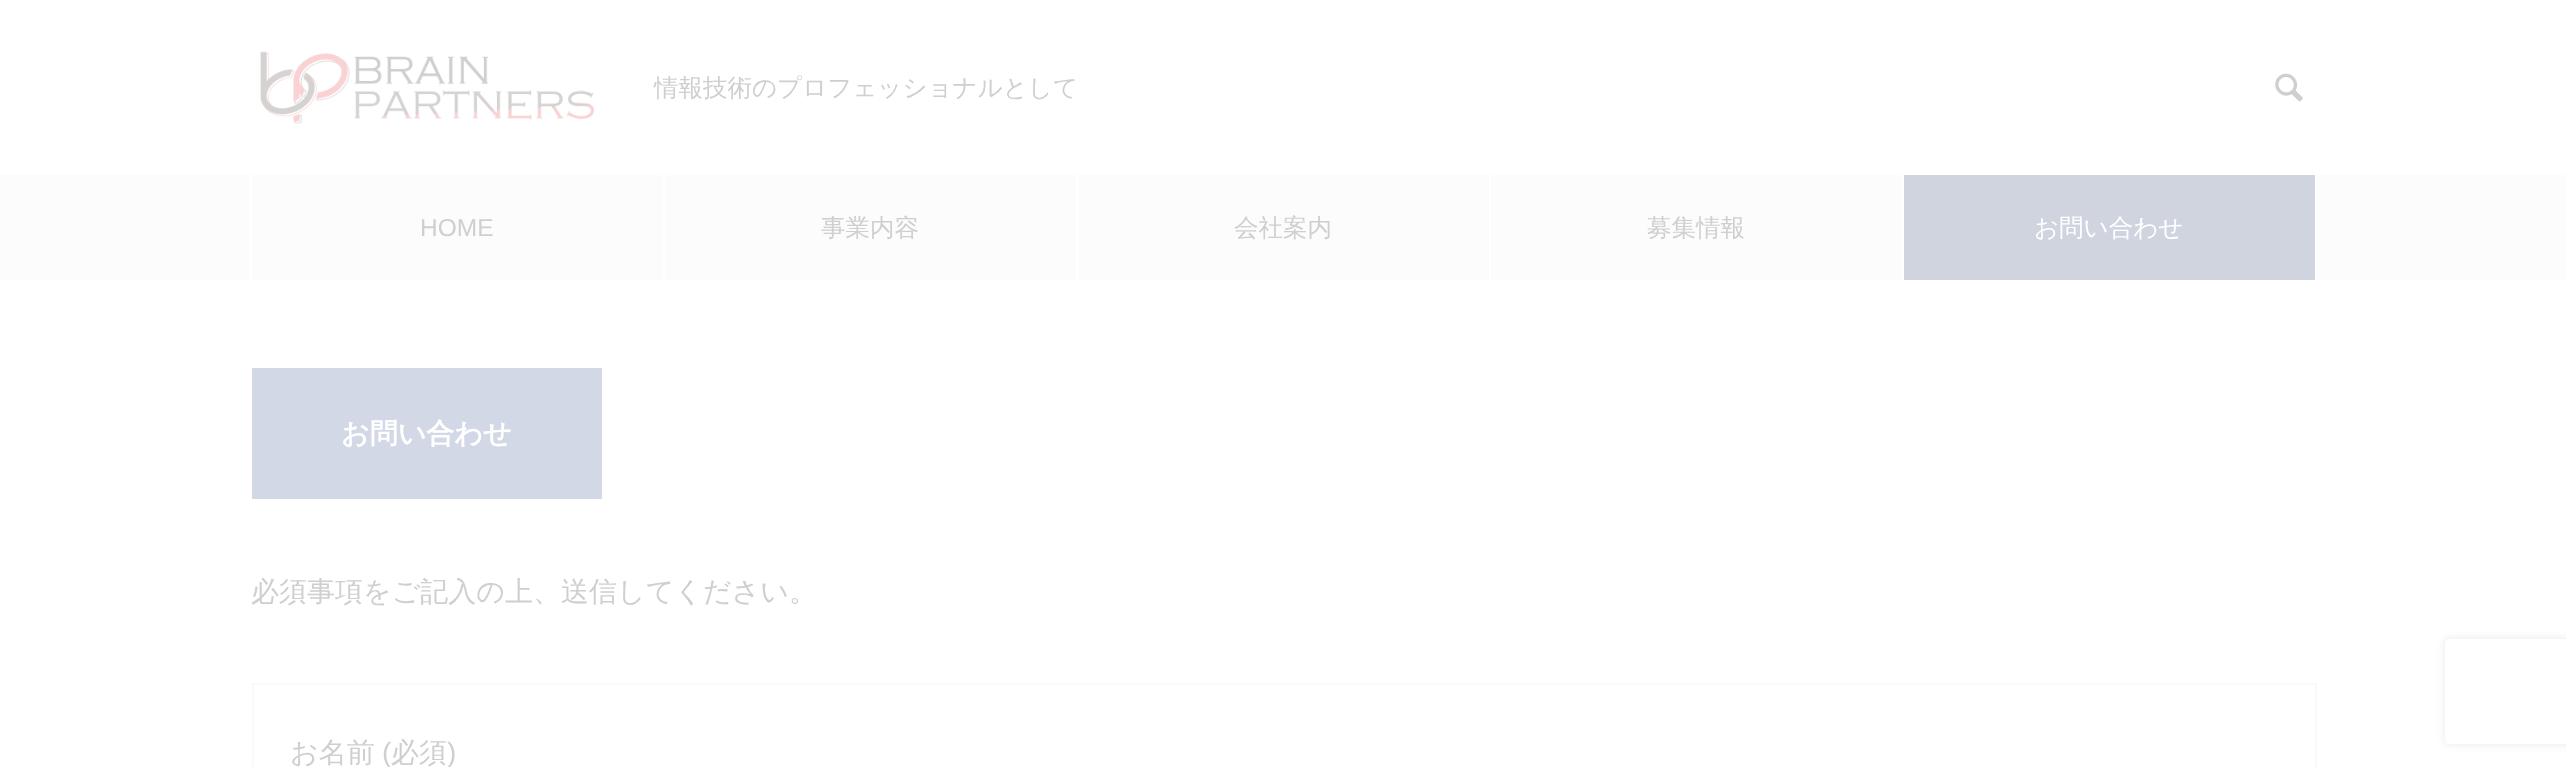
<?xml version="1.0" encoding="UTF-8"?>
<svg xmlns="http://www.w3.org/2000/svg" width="2566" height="767">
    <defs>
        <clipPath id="clip1"><path d="M 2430 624 H 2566 V 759 H 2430 Z M 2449 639 H 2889 C 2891 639 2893 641 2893 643 V 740 C 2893 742 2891 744 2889 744 H 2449 C 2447 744 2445 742 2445 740 V 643 C 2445 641 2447 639 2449 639 Z" clip-rule="evenodd"/></clipPath>
        <filter id="blur1" x="-50%" y="-200%" width="200%" height="500%"><feGaussianBlur stdDeviation="4.5"/></filter>
    </defs>
    <rect width="100%" height="100%" fill="#FFFFFF"/>
    <image x="260" y="51" width="335" height="73" href="img_01.png"/>
    <text x="654" y="96" font-family="WenQuanYi Zen Hei" font-size="24.5" font-weight="500" fill="#CFCFCF">情報技術のプロフェッショナルとして</text>
    <image x="2275" y="73" width="28" height="29" href="img_02.png"/>
    <rect x="0" y="175" width="2566" height="105" fill="#FCFCFC"/>
    <rect x="663" y="175" width="2" height="105" fill="#FFFFFF"/>
    <rect x="250" y="175" width="2" height="105" fill="#FFFFFF"/>
    <text x="420" y="236" font-family="Liberation Sans" font-size="24.5" fill="#CFCFCF">HOME</text>
    <rect x="1076" y="175" width="2" height="105" fill="#FFFFFF"/>
    <text x="821" y="236" font-family="WenQuanYi Zen Hei" font-size="24.5" font-weight="500" fill="#CFCFCF">事業内容</text>
    <text x="1234" y="236" font-family="WenQuanYi Zen Hei" font-size="24.5" font-weight="500" fill="#CFCFCF">会社案内</text>
    <rect x="1902" y="175" width="2" height="105" fill="#FFFFFF"/>
    <rect x="1489" y="175" width="2" height="105" fill="#FFFFFF"/>
    <text x="1647" y="236" font-family="WenQuanYi Zen Hei" font-size="24.5" font-weight="500" fill="#CFCFCF">募集情報</text>
    <rect x="2315" y="175" width="2" height="105" fill="#FFFFFF"/>
    <rect x="1904" y="175" width="411" height="105" fill="#CFD4DF"/>
    <text x="2034" y="236" font-family="WenQuanYi Zen Hei" font-size="24.5" font-weight="500" fill="#FFFFFF">お問い合わせ</text>
    <rect x="252" y="368" width="350" height="131" fill="#D2D8E6"/>
    <text x="341" y="443" font-family="WenQuanYi Zen Hei" font-size="28" font-weight="700" fill="#FFFFFF">お問い合わせ</text>
    <text x="251" y="601" font-family="WenQuanYi Zen Hei" font-size="28" font-weight="500" fill="#CFCFCF">必須事項をご記入の上、送信してください。</text>
    <rect x="253" y="684" width="2063" height="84" fill="none" stroke="#F9F9F9" stroke-width="2"/>
    <text x="290" y="762" font-family="WenQuanYi Zen Hei" font-size="28" font-weight="500" fill="#CFCFCF">お名前</text>
    <text x="382" y="762" font-family="Liberation Sans" font-size="28" fill="#CFCFCF">(</text>
    <text x="391" y="762" font-family="WenQuanYi Zen Hei" font-size="28" font-weight="500" fill="#CFCFCF">必須</text>
    <text x="447" y="762" font-family="Liberation Sans" font-size="28" fill="#CFCFCF">)</text>
    <g clip-path="url(#clip1)">
        <rect x="2445" y="639" width="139" height="105" rx="4" fill="#E7E7E7" filter="url(#blur1)"/>
    </g>
</svg>
